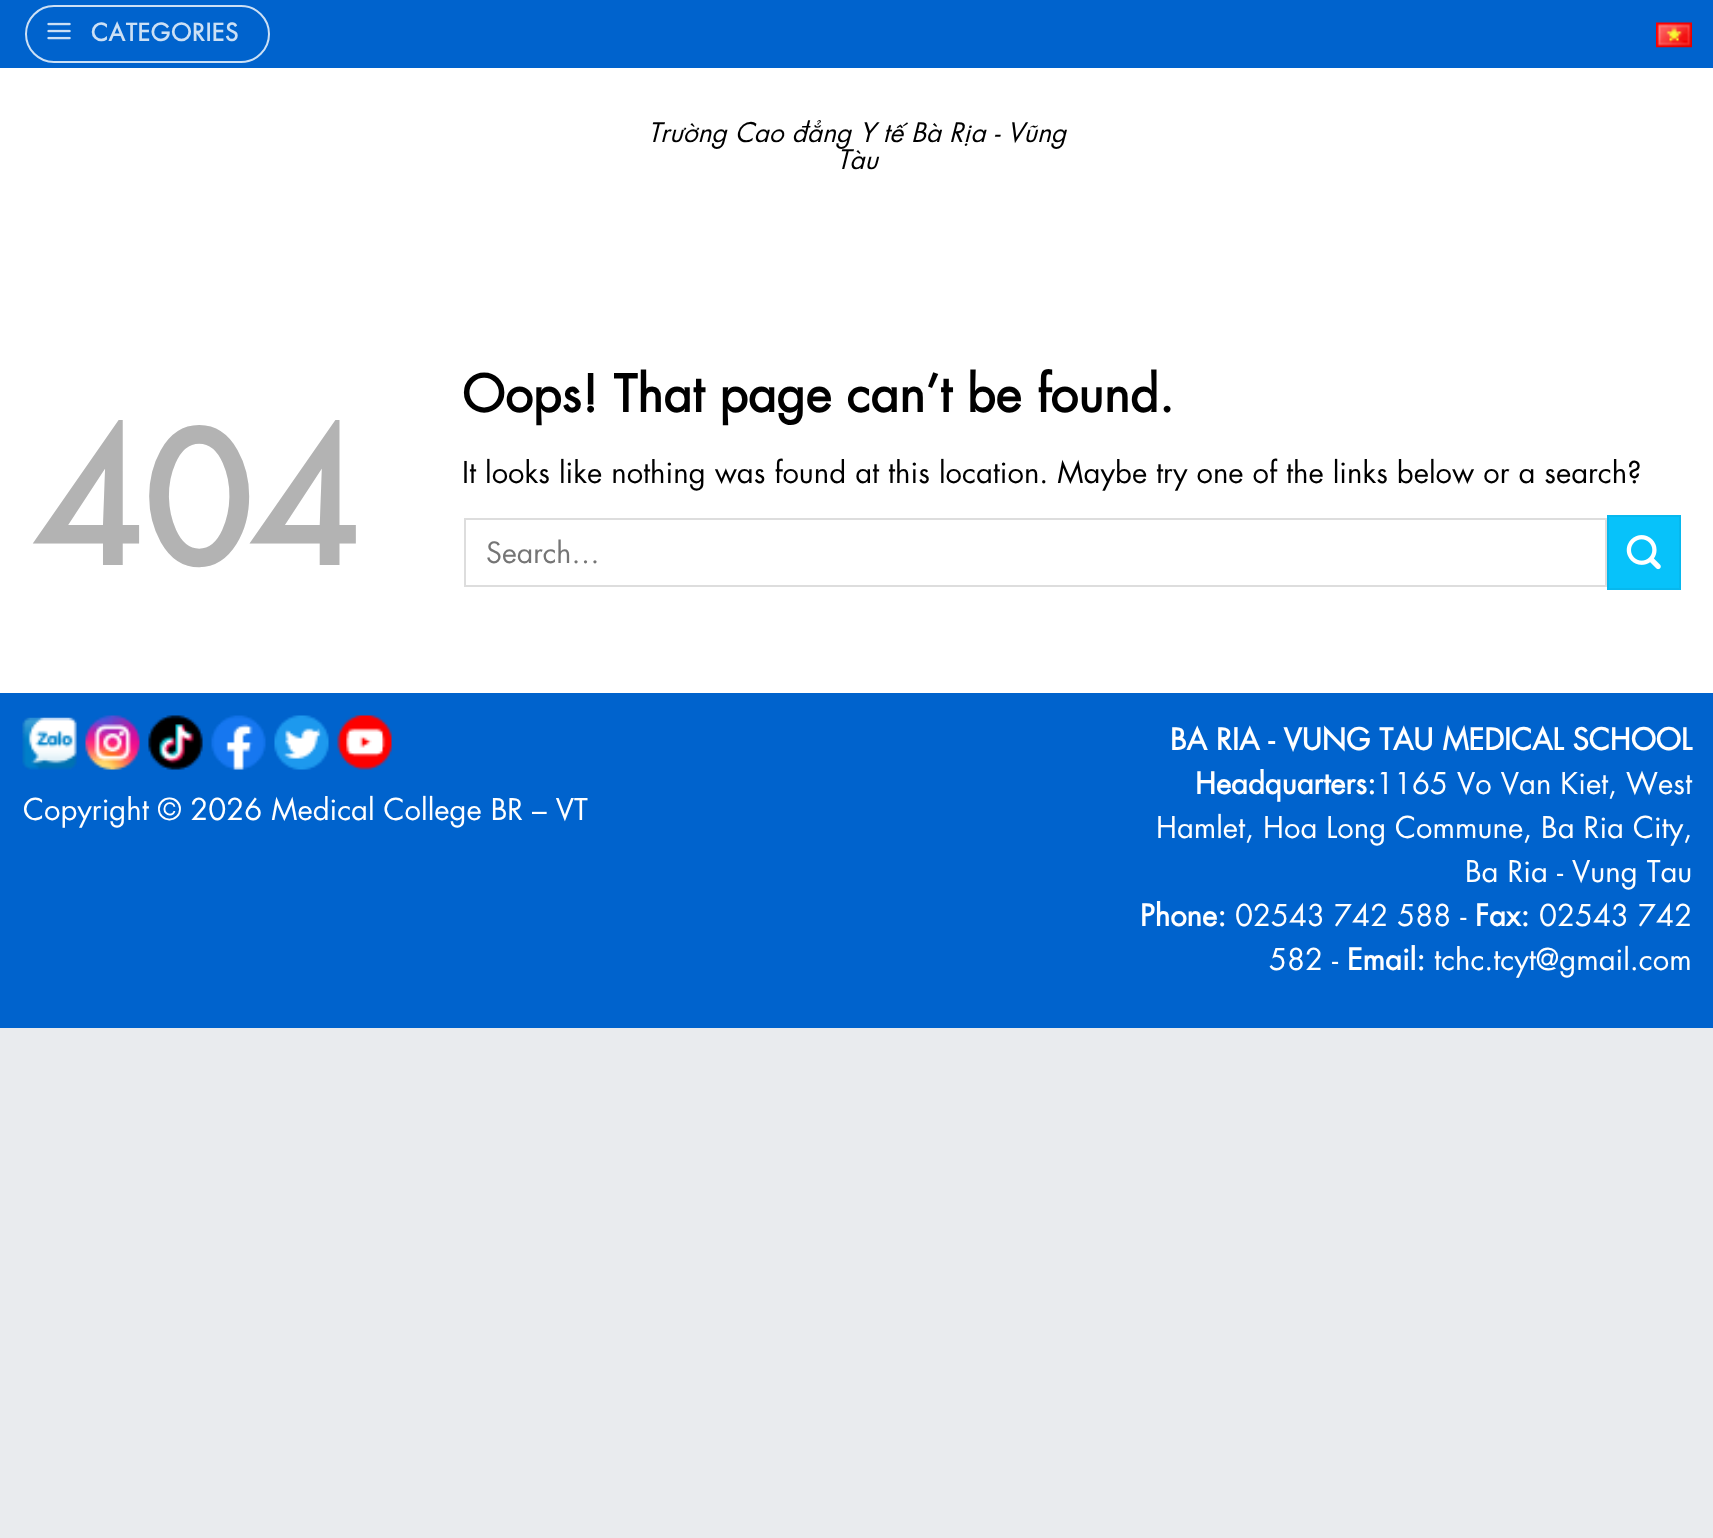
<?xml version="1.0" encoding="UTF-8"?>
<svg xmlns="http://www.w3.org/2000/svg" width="1713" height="1538">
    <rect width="100%" height="100%" fill="#E9EBEE"/>
    <rect x="0" y="68" width="1713" height="625" fill="#FFFFFF"/>
    <rect x="0" y="0" width="1713" height="68" fill="#0063CD"/>
    <rect x="26" y="6" width="243" height="56" rx="28" fill="none" stroke="#CCE0F5" stroke-width="2"/>
    <image x="47" y="22" width="24" height="18" href="img_01.png"/>
    <text x="91" y="41" font-family="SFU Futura" font-size="23.5" font-weight="700" letter-spacing="0.75" fill="#CCE0F5">CATEGORIES</text>
    <image x="1656" y="22" width="36" height="26" href="img_02.png"/>
    <text x="648" y="142" font-family="SFU Futura" font-size="26.3" font-style="italic" fill="#000000">Trường Cao đẳng Y tế Bà Rịa - Vũng</text>
    <text x="837" y="169" font-family="SFU Futura" font-size="26.3" font-style="italic" fill="#000000">Tàu</text>
    <text x="34" y="565" font-family="SFU Futura" font-size="176" font-weight="700" fill="#B3B3B3">404</text>
    <text x="462" y="412" font-family="SFU Futura" font-size="49.75" font-weight="700" fill="#000000">Oops! That page can’t be found.</text>
    <text x="462" y="483" font-family="SFU Futura" font-size="29.25" fill="#000000">It looks like nothing was found at this location. Maybe try one of the links below or a search?</text>
    <rect x="465" y="519" width="1141" height="67" fill="none" stroke="#DDDDDD" stroke-width="2"/>
    <text x="486" y="563" font-family="SFU Futura" font-size="28.5" fill="#757575">Search…</text>
    <rect x="1608" y="516" width="72" height="73" fill="#07C2FA" stroke="#07B8EE" stroke-width="2"/>
    <image x="1626" y="535" width="35" height="35" href="img_03.png"/>
    <rect x="0" y="693" width="1713" height="335" fill="#0063CD"/>
    <image x="22" y="717" width="55" height="53" href="img_04.png"/>
    <image x="85" y="715" width="55" height="55" href="img_05.png"/>
    <image x="148" y="715" width="55" height="55" href="img_06.png"/>
    <image x="211" y="715" width="55" height="55" href="img_07.png"/>
    <image x="274" y="715" width="55" height="55" href="img_08.png"/>
    <image x="337" y="715" width="55" height="55" href="img_09.png"/>
    <text x="23" y="820" font-family="SFU Futura" font-size="29.25" fill="#FFFFFF">Copyright © 2026 Medical College BR – VT</text>
    <text x="1170" y="750" font-family="SFU Futura" font-size="29.25" font-weight="700" fill="#FFFFFF">BA RIA - VUNG TAU MEDICAL SCHOOL</text>
    <text x="1195" y="794" font-family="SFU Futura" font-size="29.25" font-weight="700" fill="#FFFFFF">Headquarters:</text>
    <text x="1376" y="794" font-family="SFU Futura" font-size="29.25" fill="#FFFFFF">1165 Vo Van Kiet, West</text>
    <text x="1156" y="838" font-family="SFU Futura" font-size="29.25" fill="#FFFFFF">Hamlet, Hoa Long Commune, Ba Ria City,</text>
    <text x="1465" y="882" font-family="SFU Futura" font-size="29.25" fill="#FFFFFF">Ba Ria - Vung Tau</text>
    <text x="1140" y="926" font-family="SFU Futura" font-size="29.25" font-weight="700" fill="#FFFFFF">Phone:</text>
    <text x="1235" y="926" font-family="SFU Futura" font-size="29.25" fill="#FFFFFF">02543 742 588 -</text>
    <text x="1475" y="926" font-family="SFU Futura" font-size="29.25" font-weight="700" fill="#FFFFFF">Fax:</text>
    <text x="1539" y="926" font-family="SFU Futura" font-size="29.25" fill="#FFFFFF">02543 742</text>
    <text x="1269" y="970" font-family="SFU Futura" font-size="29.25" fill="#FFFFFF">582 -</text>
    <text x="1347" y="970" font-family="SFU Futura" font-size="29.25" font-weight="700" fill="#FFFFFF">Email:</text>
    <text x="1434" y="970" font-family="SFU Futura" font-size="29.25" fill="#FFFFFF">tchc.tcyt@gmail.com</text>
</svg>
